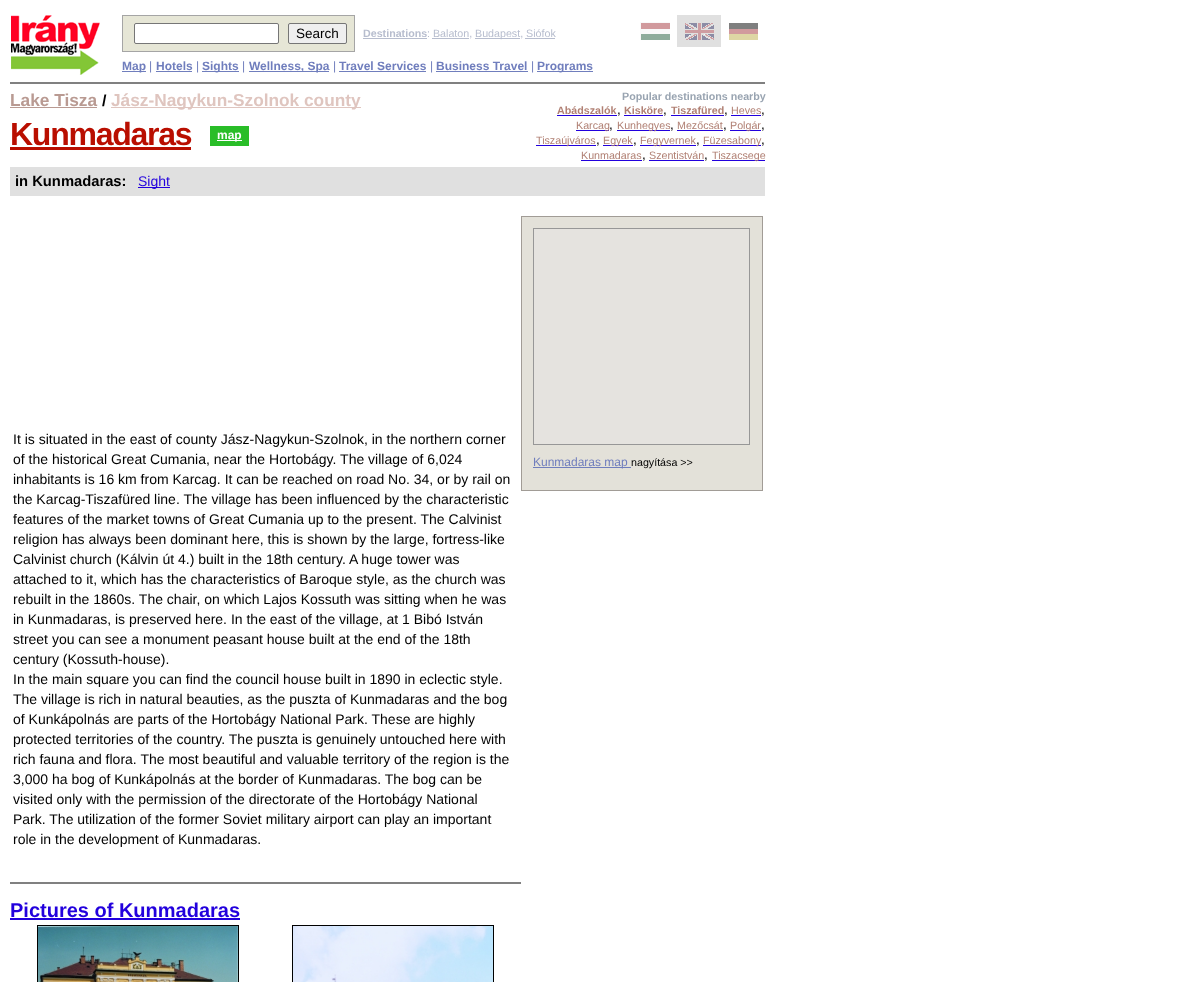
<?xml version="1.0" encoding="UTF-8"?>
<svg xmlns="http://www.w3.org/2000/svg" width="1179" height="982">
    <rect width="100%" height="100%" fill="#FFFFFF"/>
    <image x="11" y="15" width="89" height="60" href="img_01.png"/>
    <rect x="122.5" y="15.5" width="232" height="36" fill="#E6E6D6" stroke="#A5A5A5"/>
    <rect x="134.5" y="23.5" width="144" height="20" rx="1.5" fill="#FFFFFF" stroke="#767676"/>
    <rect x="288.5" y="23.5" width="58" height="20" rx="1.5" fill="#EFEFEF" stroke="#767676"/>
    <text x="296" y="38" font-family="Liberation Sans" font-size="13.5" fill="#000000">Search</text>
    <text x="363" y="37" font-family="Liberation Sans" font-size="10.7" font-weight="700" fill="#B7BDCE">Destinations</text>
    <text x="427" y="37" font-family="Liberation Sans" font-size="10.7" fill="#B7BDCE">: Balaton,</text>
    <rect x="363" y="38" width="64" height="1" fill="#B7BDCE"/>
    <rect x="432" y="38" width="37" height="1" fill="#B7BDCE"/>
    <rect x="475" y="38" width="45" height="1" fill="#B7BDCE"/>
    <text x="475" y="37" font-family="Liberation Sans" font-size="10.7" fill="#B7BDCE">Budapest, Siófok</text>
    <rect x="525" y="38" width="30" height="1" fill="#B7BDCE"/>
    <image x="640" y="22" width="30" height="18" href="img_02.png"/>
    <rect x="677" y="15" width="44" height="32" fill="#E0E0E0"/>
    <image x="685" y="23" width="29" height="17" href="img_03.png"/>
    <image x="729" y="23" width="29" height="17" href="img_04.png"/>
    <rect x="122" y="71" width="24" height="1" fill="#707EBD"/>
    <text x="122" y="70" font-family="Liberation Sans" font-size="12" font-weight="700" fill="#707EBD">Map</text>
    <text x="149" y="70" font-family="Liberation Sans" font-size="12" fill="#707EBD">|</text>
    <text x="156" y="70" font-family="Liberation Sans" font-size="12" font-weight="700" fill="#707EBD">Hotels</text>
    <rect x="156" y="71" width="36" height="1" fill="#707EBD"/>
    <text x="196" y="70" font-family="Liberation Sans" font-size="12" fill="#707EBD">|</text>
    <rect x="202" y="71" width="37" height="1" fill="#707EBD"/>
    <text x="202" y="70" font-family="Liberation Sans" font-size="12" font-weight="700" fill="#707EBD">Sights</text>
    <text x="242" y="70" font-family="Liberation Sans" font-size="12" fill="#707EBD">|</text>
    <rect x="249" y="71" width="80" height="1" fill="#707EBD"/>
    <text x="249" y="70" font-family="Liberation Sans" font-size="12" font-weight="700" fill="#707EBD">Wellness, Spa</text>
    <text x="333" y="70" font-family="Liberation Sans" font-size="12" fill="#707EBD">|</text>
    <text x="339" y="70" font-family="Liberation Sans" font-size="12" font-weight="700" fill="#707EBD">Travel Services</text>
    <rect x="339" y="71" width="87" height="1" fill="#707EBD"/>
    <text x="430" y="70" font-family="Liberation Sans" font-size="12" fill="#707EBD">|</text>
    <text x="436" y="70" font-family="Liberation Sans" font-size="12" font-weight="700" fill="#707EBD">Business Travel</text>
    <rect x="436" y="71" width="92" height="1" fill="#707EBD"/>
    <text x="531" y="70" font-family="Liberation Sans" font-size="12" fill="#707EBD">|</text>
    <rect x="537" y="71" width="56" height="1" fill="#707EBD"/>
    <text x="537" y="70" font-family="Liberation Sans" font-size="12" font-weight="700" fill="#707EBD">Programs</text>
    <rect x="10" y="82" width="755" height="2" fill="#808080"/>
    <text x="10" y="106" font-family="Liberation Sans" font-size="17.3" font-weight="700" fill="#B99A92">Lake Tisza</text>
    <rect x="10" y="107" width="87" height="1" fill="#B99A92"/>
    <text x="102" y="106" font-family="Liberation Sans" font-size="16" font-weight="700" fill="#000000">/</text>
    <rect x="111" y="107" width="250" height="1" fill="#DFC5BF"/>
    <text x="111" y="106" font-family="Liberation Sans" font-size="17.3" font-weight="700" fill="#DFC5BF">Jász-Nagykun-Szolnok county</text>
    <text x="622" y="100" font-family="Liberation Sans" font-size="10.7" font-weight="700" fill="#99A4B1">Popular destinations nearby</text>
    <text x="557" y="114" font-family="Liberation Sans" font-size="10.7" font-weight="700" fill="#B18074">Abádszalók</text>
    <rect x="557" y="115" width="60" height="1" fill="#2200DD"/>
    <text x="617" y="114" font-family="Liberation Sans" font-size="13.5" fill="#000000">,</text>
    <text x="624" y="114" font-family="Liberation Sans" font-size="10.7" font-weight="700" fill="#B18074">Kisköre</text>
    <rect x="624" y="115" width="39" height="1" fill="#2200DD"/>
    <text x="663" y="114" font-family="Liberation Sans" font-size="13.5" fill="#000000">,</text>
    <text x="671" y="114" font-family="Liberation Sans" font-size="10.7" font-weight="700" fill="#B18074">Tiszafüred</text>
    <rect x="671" y="115" width="53" height="1" fill="#2200DD"/>
    <text x="724" y="114" font-family="Liberation Sans" font-size="13.5" fill="#000000">,</text>
    <text x="731" y="114" font-family="Liberation Sans" font-size="10.7" fill="#B18074">Heves</text>
    <rect x="731" y="115" width="30" height="1" fill="#2200DD"/>
    <text x="761" y="114" font-family="Liberation Sans" font-size="13.5" fill="#000000">,</text>
    <rect x="576" y="130" width="33" height="1" fill="#2200DD"/>
    <text x="576" y="129" font-family="Liberation Sans" font-size="10.7" fill="#B18074">Karcag</text>
    <text x="609" y="129" font-family="Liberation Sans" font-size="13.5" fill="#000000">,</text>
    <rect x="617" y="130" width="53" height="1" fill="#2200DD"/>
    <text x="617" y="129" font-family="Liberation Sans" font-size="10.7" fill="#B18074">Kunhegyes</text>
    <text x="670" y="129" font-family="Liberation Sans" font-size="13.5" fill="#000000">,</text>
    <text x="677" y="129" font-family="Liberation Sans" font-size="10.7" fill="#B18074">Mezőcsát</text>
    <rect x="677" y="130" width="46" height="1" fill="#2200DD"/>
    <text x="723" y="129" font-family="Liberation Sans" font-size="13.5" fill="#000000">,</text>
    <rect x="730" y="130" width="31" height="1" fill="#2200DD"/>
    <text x="730" y="129" font-family="Liberation Sans" font-size="10.7" fill="#B18074">Polgár</text>
    <text x="761" y="129" font-family="Liberation Sans" font-size="13.5" fill="#000000">,</text>
    <rect x="536" y="145" width="60" height="1" fill="#2200DD"/>
    <text x="536" y="144" font-family="Liberation Sans" font-size="10.7" fill="#B18074">Tiszaújváros</text>
    <text x="596" y="144" font-family="Liberation Sans" font-size="13.5" fill="#000000">,</text>
    <rect x="603" y="145" width="30" height="1" fill="#2200DD"/>
    <text x="603" y="144" font-family="Liberation Sans" font-size="10.7" fill="#B18074">Egyek</text>
    <text x="633" y="144" font-family="Liberation Sans" font-size="13.5" fill="#000000">,</text>
    <rect x="640" y="145" width="56" height="1" fill="#2200DD"/>
    <text x="640" y="144" font-family="Liberation Sans" font-size="10.7" fill="#B18074">Fegyvernek</text>
    <text x="696" y="144" font-family="Liberation Sans" font-size="13.5" fill="#000000">,</text>
    <rect x="703" y="145" width="58" height="1" fill="#2200DD"/>
    <text x="703" y="144" font-family="Liberation Sans" font-size="10.7" fill="#B18074">Füzesabony</text>
    <text x="761" y="144" font-family="Liberation Sans" font-size="13.5" fill="#000000">,</text>
    <text x="581" y="159" font-family="Liberation Sans" font-size="10.7" fill="#B18074">Kunmadaras</text>
    <rect x="581" y="160" width="61" height="1" fill="#2200DD"/>
    <text x="642" y="159" font-family="Liberation Sans" font-size="13.5" fill="#000000">,</text>
    <text x="649" y="159" font-family="Liberation Sans" font-size="10.7" fill="#B18074">Szentistván</text>
    <rect x="649" y="160" width="55" height="1" fill="#2200DD"/>
    <text x="704" y="159" font-family="Liberation Sans" font-size="13.5" fill="#000000">,</text>
    <rect x="712" y="160" width="53" height="1" fill="#2200DD"/>
    <text x="712" y="159" font-family="Liberation Sans" font-size="10.7" fill="#B18074">Tiszacsege</text>
    <text x="10" y="145" font-family="Liberation Sans" font-size="32" font-weight="700" letter-spacing="-1.25" fill="#B90E00">Kunmadaras</text>
    <rect x="10" y="147" width="181" height="3" fill="#B90E00"/>
    <rect x="210" y="126" width="39" height="20" fill="#29BD28"/>
    <rect x="217" y="140" width="25" height="1" fill="#FFFFFF"/>
    <text x="217" y="139" font-family="Liberation Sans" font-size="12" font-weight="700" fill="#FFFFFF">map</text>
    <rect x="10" y="167" width="755" height="29" fill="#E0E0E0"/>
    <text x="15" y="186" font-family="Liberation Sans" font-size="14.75" font-weight="700" fill="#000000">in Kunmadaras:</text>
    <rect x="138" y="187" width="32" height="1" fill="#2200DD"/>
    <text x="138" y="186" font-family="Liberation Sans" font-size="14" fill="#2200DD">Sight</text>
    <text font-family="Liberation Sans" font-size="14" fill="#000000">
        <tspan x="13" y="444">It is situated in the east of county Jász-Nagykun-Szolnok, in the northern corner</tspan>
        <tspan x="13" y="464">of the historical Great Cumania, near the Hortobágy. The village of 6,024</tspan>
        <tspan x="13" y="484">inhabitants is 16 km from Karcag. It can be reached on road No. 34, or by rail on</tspan>
        <tspan x="13" y="504">the Karcag-Tiszafüred line. The village has been influenced by the characteristic</tspan>
        <tspan x="13" y="524">features of the market towns of Great Cumania up to the present. The Calvinist</tspan>
        <tspan x="13" y="544">religion has always been dominant here, this is shown by the large, fortress-like</tspan>
        <tspan x="13" y="564">Calvinist church (Kálvin út 4.) built in the 18th century. A huge tower was</tspan>
        <tspan x="13" y="584">attached to it, which has the characteristics of Baroque style, as the church was</tspan>
        <tspan x="13" y="604">rebuilt in the 1860s. The chair, on which Lajos Kossuth was sitting when he was</tspan>
        <tspan x="13" y="624">in Kunmadaras, is preserved here. In the east of the village, at 1 Bibó István</tspan>
        <tspan x="13" y="644">street you can see a monument peasant house built at the end of the 18th</tspan>
        <tspan x="13" y="664">century (Kossuth-house).</tspan>
        <tspan x="13" y="684">In the main square you can find the council house built in 1890 in eclectic style.</tspan>
        <tspan x="13" y="704">The village is rich in natural beauties, as the puszta of Kunmadaras and the bog</tspan>
        <tspan x="13" y="724">of Kunkápolnás are parts of the Hortobágy National Park. These are highly</tspan>
        <tspan x="13" y="744">protected territories of the country. The puszta is genuinely untouched here with</tspan>
        <tspan x="13" y="764">rich fauna and flora. The most beautiful and valuable territory of the region is the</tspan>
        <tspan x="13" y="784">3,000 ha bog of Kunkápolnás at the border of Kunmadaras. The bog can be</tspan>
        <tspan x="13" y="804">visited only with the permission of the directorate of the Hortobágy National</tspan>
        <tspan x="13" y="824">Park. The utilization of the former Soviet military airport can play an important</tspan>
        <tspan x="13" y="844">role in the development of Kunmadaras.</tspan>
    </text>
    <rect x="10" y="882" width="511" height="2" fill="#808080"/>
    <text x="10" y="917" font-family="Liberation Sans" font-size="20" font-weight="700" fill="#2200DD">Pictures of Kunmadaras</text>
    <rect x="10" y="918" width="230" height="2" fill="#2200DD"/>
    <rect x="37.5" y="925.5" width="201" height="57" fill="none" stroke="#000000"/>
    <image x="38" y="926" width="200" height="56" href="img_05.png"/>
    <rect x="292.5" y="925.5" width="201" height="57" fill="none" stroke="#000000"/>
    <image x="293" y="926" width="200" height="56" href="img_06.png"/>
    <rect x="521.5" y="216.5" width="241" height="274" fill="#E3E1D9" stroke="#A19C96"/>
    <rect x="533.5" y="228.5" width="216" height="216" fill="none" stroke="#979797"/>
    <rect x="534" y="229" width="215" height="215" fill="#E5E3DF"/>
    <rect x="533" y="467" width="98" height="1" fill="#707EBD"/>
    <text x="533" y="466" font-family="Liberation Sans" font-size="12" fill="#707EBD">Kunmadaras map</text>
    <text x="631" y="466" font-family="Liberation Sans" font-size="10.7" fill="#000000">nagyítása &gt;&gt;</text>
</svg>
